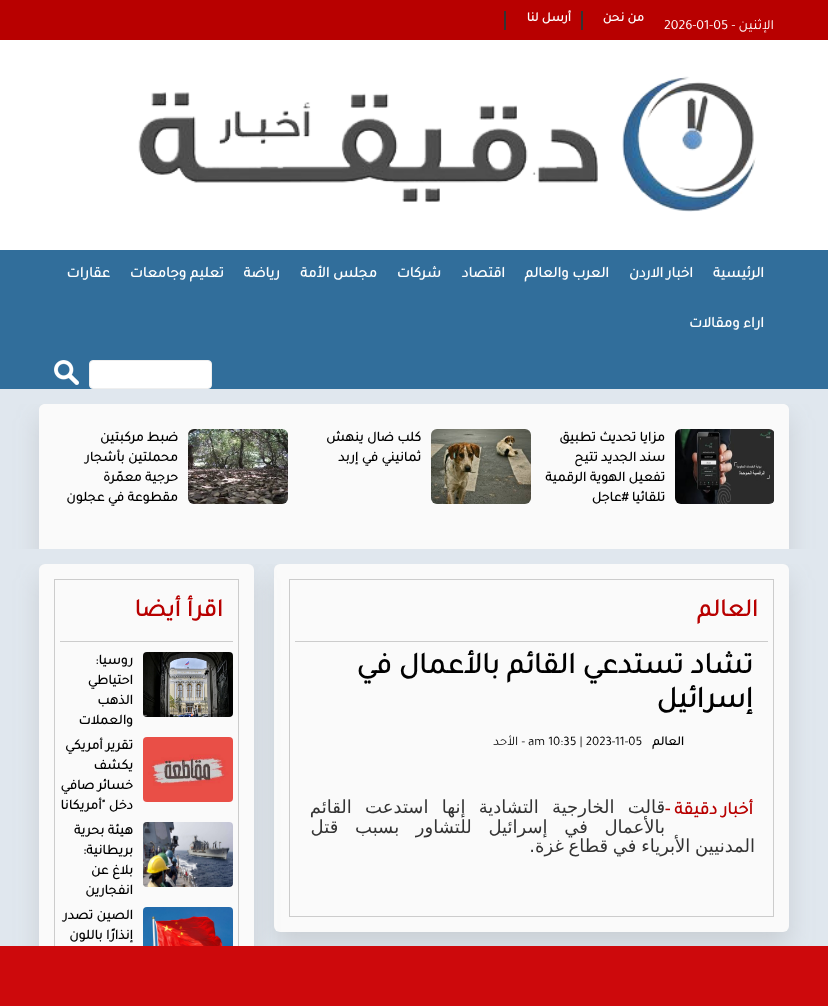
<?xml version="1.0" encoding="UTF-8"?>
<svg xmlns="http://www.w3.org/2000/svg" width="828" height="1006">
    <defs>
        <clipPath id="clip1"><rect x="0" y="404" width="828" height="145"/></clipPath>
        <filter id="blur1" x="-50%" y="-200%" width="200%" height="500%"><feGaussianBlur stdDeviation="12"/></filter>
        <clipPath id="clip2"><rect x="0" y="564" width="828" height="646"/></clipPath>
    </defs>
    <rect width="100%" height="100%" fill="#E0E7EE"/>
    <rect x="0" y="0" width="828" height="40" fill="#B80000"/>
    <text x="774" y="29" font-family="Tajawal" font-size="14" direction="rtl" fill="#FFFFFF">الإثنين</text>
    <text x="664" y="29" font-family="Tajawal" font-size="14" fill="#FFFFFF">2026-01-05 -</text>
    <rect x="581" y="11" width="2" height="19" fill="#333333"/>
    <text x="644" y="21" font-family="Tajawal" font-size="13" font-weight="700" direction="rtl" fill="#FFFFFF">من نحن</text>
    <rect x="504" y="11" width="2" height="19" fill="#333333"/>
    <text x="571" y="21" font-family="Tajawal" font-size="13" font-weight="700" direction="rtl" fill="#FFFFFF">أرسل لنا</text>
    <rect x="0" y="40" width="828" height="210" fill="#FFFFFF"/>
    <image x="138" y="76" width="618" height="136" href="img_01.png"/>
    <g clip-path="url(#clip1)">
        <rect x="39" y="417" width="750" height="155" rx="6" fill="#999DA0" fill-opacity="0.32" filter="url(#blur1)"/>
    </g>
    <rect x="0" y="250" width="828" height="139" fill="#316E9B"/>
    <text x="764" y="277" font-family="Tajawal" font-size="15" font-weight="700" direction="rtl" fill="#FFFFFF">الرئيسية</text>
    <text x="693" y="277" font-family="Tajawal" font-size="15" font-weight="700" direction="rtl" fill="#FFFFFF">اخبار الاردن</text>
    <text x="609" y="277" font-family="Tajawal" font-size="15" font-weight="700" direction="rtl" fill="#FFFFFF">العرب والعالم</text>
    <text x="505" y="277" font-family="Tajawal" font-size="15" font-weight="700" direction="rtl" fill="#FFFFFF">اقتصاد</text>
    <text x="441" y="277" font-family="Tajawal" font-size="15" font-weight="700" direction="rtl" fill="#FFFFFF">شركات</text>
    <text x="377" y="277" font-family="Tajawal" font-size="15" font-weight="700" direction="rtl" fill="#FFFFFF">مجلس الأمة</text>
    <text x="280" y="277" font-family="Tajawal" font-size="15" font-weight="700" direction="rtl" fill="#FFFFFF">رياضة</text>
    <text x="224" y="277" font-family="Tajawal" font-size="15" font-weight="700" direction="rtl" fill="#FFFFFF">تعليم وجامعات</text>
    <text x="110" y="277" font-family="Tajawal" font-size="15" font-weight="700" direction="rtl" fill="#FFFFFF">عقارات</text>
    <text x="764" y="327" font-family="Tajawal" font-size="15" font-weight="700" direction="rtl" fill="#FFFFFF">اراء ومقالات</text>
    <rect x="89.5" y="360.5" width="122" height="28" rx="3.5" fill="#FFFFFF" stroke="#EFEFEF"/>
    <image x="54" y="360" width="25" height="25" href="img_02.png"/>
    <path d="M 45 404 H 783 C 786.5 404 789 406.5 789 410 V 549 H 39 V 410 C 39 406.5 41.5 404 45 404 Z" fill="#FAFAFA"/>
    <image x="675" y="429" width="99" height="75" href="img_03.png"/>
    <text font-family="Tajawal" font-size="14" font-weight="700" direction="rtl" fill="#000000">
        <tspan x="665" y="441">مزايا تحديث تطبيق</tspan>
        <tspan x="665" y="461">سند الجديد تتيح</tspan>
        <tspan x="665" y="481">تفعيل الهوية الرقمية</tspan>
        <tspan x="665" y="501">تلقائيا #عاجل</tspan>
    </text>
    <image x="431" y="429" width="100" height="75" href="img_04.png"/>
    <text font-family="Tajawal" font-size="14" font-weight="700" direction="rtl" fill="#000000">
        <tspan x="421" y="441">كلب ضال ينهش</tspan>
        <tspan x="421" y="461">ثمانيني في إربد</tspan>
    </text>
    <image x="188" y="429" width="100" height="75" href="img_05.png"/>
    <text font-family="Tajawal" font-size="14" font-weight="700" direction="rtl" fill="#000000">
        <tspan x="178" y="441">ضبط مركبتين</tspan>
        <tspan x="178" y="461">محملتين بأشجار</tspan>
        <tspan x="178" y="481">حرجية معمّرة</tspan>
        <tspan x="178" y="501">مقطوعة في عجلون</tspan>
    </text>
    <g clip-path="url(#clip2)">
        <rect x="274" y="577" width="515" height="368" rx="6" fill="#999DA0" fill-opacity="0.32" filter="url(#blur1)"/>
    </g>
    <rect x="274" y="564" width="515" height="368" rx="6" fill="#FAFAFA"/>
    <g clip-path="url(#clip2)">
        <rect x="39" y="577" width="215" height="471" rx="6" fill="#999DA0" fill-opacity="0.32" filter="url(#blur1)"/>
    </g>
    <rect x="289.5" y="579.5" width="484" height="337" fill="none" stroke="#CCCCCC"/>
    <rect x="295" y="641" width="473" height="1" fill="#CCCCCC"/>
    <text x="758" y="616" font-family="Tajawal" font-size="25" font-weight="700" direction="rtl" fill="#B80000">العالم</text>
    <text font-family="Tajawal" font-size="30" font-weight="700" direction="rtl" fill="#000000">
        <tspan x="753" y="673">تشاد تستدعي القائم بالأعمال في</tspan>
        <tspan x="753" y="707">إسرائيل</tspan>
    </text>
    <text x="684" y="745" font-family="Tajawal" font-size="13" font-weight="700" direction="rtl" fill="#000000">العالم</text>
    <text x="528" y="745" font-family="Tajawal" font-size="13" fill="#000000">am 10:35 | 2023-11-05</text>
    <text x="525" y="745" font-family="Tajawal" font-size="13" direction="rtl" fill="#000000">- الأحد</text>
    <text font-family="DejaVu Sans" font-size="18" direction="rtl" fill="#333333">
        <tspan x="665" y="813" word-spacing="7.5">قالت الخارجية التشادية إنها استدعت القائم</tspan>
        <tspan x="665" y="833" word-spacing="11">بالأعمال في إسرائيل للتشاور بسبب قتل</tspan>
    </text>
    <text x="755" y="852" word-spacing="-1" font-family="DejaVu Sans" font-size="18" direction="rtl" fill="#333333">المدنيين الأبرياء في قطاع غزة.</text>
    <text x="753" y="814" font-family="Tajawal" font-size="18" font-weight="700" direction="rtl" fill="#B80000">أخبار دقيقة</text>
    <text x="665" y="814" font-family="Tajawal" font-size="18" font-weight="700" fill="#B80000">-</text>
    <rect x="39" y="564" width="215" height="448" rx="6" fill="#FAFAFA"/>
    <rect x="54.5" y="579.5" width="184" height="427" fill="none" stroke="#CCCCCC"/>
    <rect x="60" y="641" width="173" height="1" fill="#CCCCCC"/>
    <text x="223" y="616" font-family="Tajawal" font-size="25" font-weight="700" direction="rtl" fill="#B80000">اقرأ أيضا</text>
    <image x="143" y="652" width="90" height="65" href="img_06.png"/>
    <text font-family="Tajawal" font-size="14" font-weight="700" direction="rtl" fill="#000000">
        <tspan x="133" y="664">روسيا:</tspan>
        <tspan x="133" y="684">احتياطي</tspan>
        <tspan x="133" y="704">الذهب</tspan>
        <tspan x="133" y="724">والعملات</tspan>
    </text>
    <image x="143" y="737" width="90" height="65" href="img_07.png"/>
    <text font-family="Tajawal" font-size="14" font-weight="700" direction="rtl" fill="#000000">
        <tspan x="133" y="749">تقرير أمريكي</tspan>
        <tspan x="133" y="769">يكشف</tspan>
        <tspan x="133" y="789">خسائر صافي</tspan>
        <tspan x="133" y="809">دخل "أمريكانا</tspan>
    </text>
    <image x="143" y="822" width="90" height="65" href="img_08.png"/>
    <text font-family="Tajawal" font-size="14" font-weight="700" direction="rtl" fill="#000000">
        <tspan x="133" y="834">هيئة بحرية</tspan>
        <tspan x="133" y="854">بريطانية:</tspan>
        <tspan x="133" y="874">بلاغ عن</tspan>
        <tspan x="133" y="894">انفجارين</tspan>
    </text>
    <image x="143" y="907" width="90" height="39" href="img_09.png"/>
    <text font-family="Tajawal" font-size="14" font-weight="700" direction="rtl" fill="#000000">
        <tspan x="133" y="919">الصين تصدر</tspan>
        <tspan x="133" y="939">إنذارًا باللون</tspan>
    </text>
    <rect x="0" y="946" width="828" height="60" fill="#CD090C"/>
</svg>
